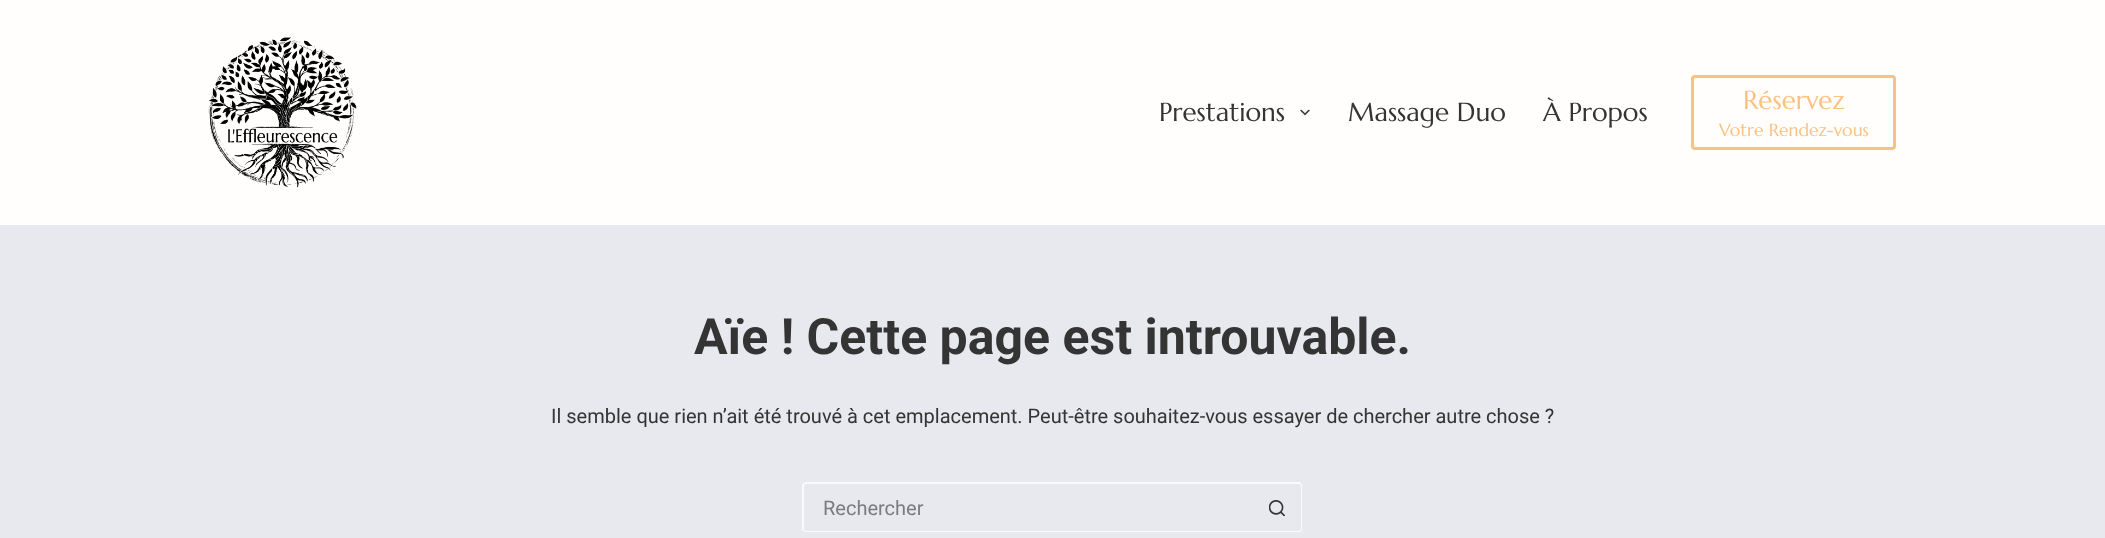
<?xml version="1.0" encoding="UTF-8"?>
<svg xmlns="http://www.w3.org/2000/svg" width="2105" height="538">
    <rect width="100%" height="100%" fill="#E7E9EF"/>
    <rect x="0" y="0" width="2105" height="225" fill="#FFFEFC"/>
    <image x="208" y="37" width="149" height="151" href="img_01.png"/>
    <text x="1159" y="121" font-family="Marcellus" font-size="26" fill="#343434">Prestations</text>
    <image x="1300" y="109" width="10" height="7" href="img_02.png"/>
    <text x="1348" y="121" font-family="Marcellus" font-size="26" fill="#343434">Massage Duo</text>
    <text x="1543" y="121" font-family="Marcellus" font-size="26" fill="#343434">À Propos</text>
    <rect x="1692.5" y="76.5" width="202" height="72" rx="2.5" fill="none" stroke="#FBC181" stroke-width="3"/>
    <text x="1743" y="109" font-family="Marcellus" font-size="26" fill="#FBC181">Réservez</text>
    <text x="1719" y="136" font-family="Marcellus" font-size="17.5" fill="#FBC181">Votre Rendez-vous</text>
    <text x="694" y="354" font-family="Roboto" font-size="50" font-weight="700" fill="#343434">Aïe ! Cette page est introuvable.</text>
    <text x="551" y="423" font-family="Roboto" font-size="20" fill="#343434">Il semble que rien n’ait été trouvé à cet emplacement. Peut-être souhaitez-vous essayer de chercher autre chose ?</text>
    <path d="M 806 482 H 1252 V 532 H 806 C 804 532 802 531 802 529 V 486 C 802 484 804 482 806 482 Z M 806 484 H 1252 V 531 H 806 C 805 531 804 530 804 529 V 486 C 804 485 805 484 806 484 Z" fill="#FAFAFA" fill-rule="evenodd"/>
    <text x="823" y="515" font-family="Roboto" font-size="20" fill="#7C7C7F">Rechercher</text>
    <path d="M 1252 482 H 1299 C 1301 482 1302 484 1302 486 V 529 C 1302 531 1301 532 1299 532 H 1252 Z M 1252 484 H 1299 C 1300 484 1301 485 1301 486 V 529 C 1301 530 1300 531 1299 531 H 1252 Z" fill="#FAFAFA" fill-rule="evenodd"/>
    <image x="1269" y="500" width="16" height="16" href="img_03.png"/>
</svg>
